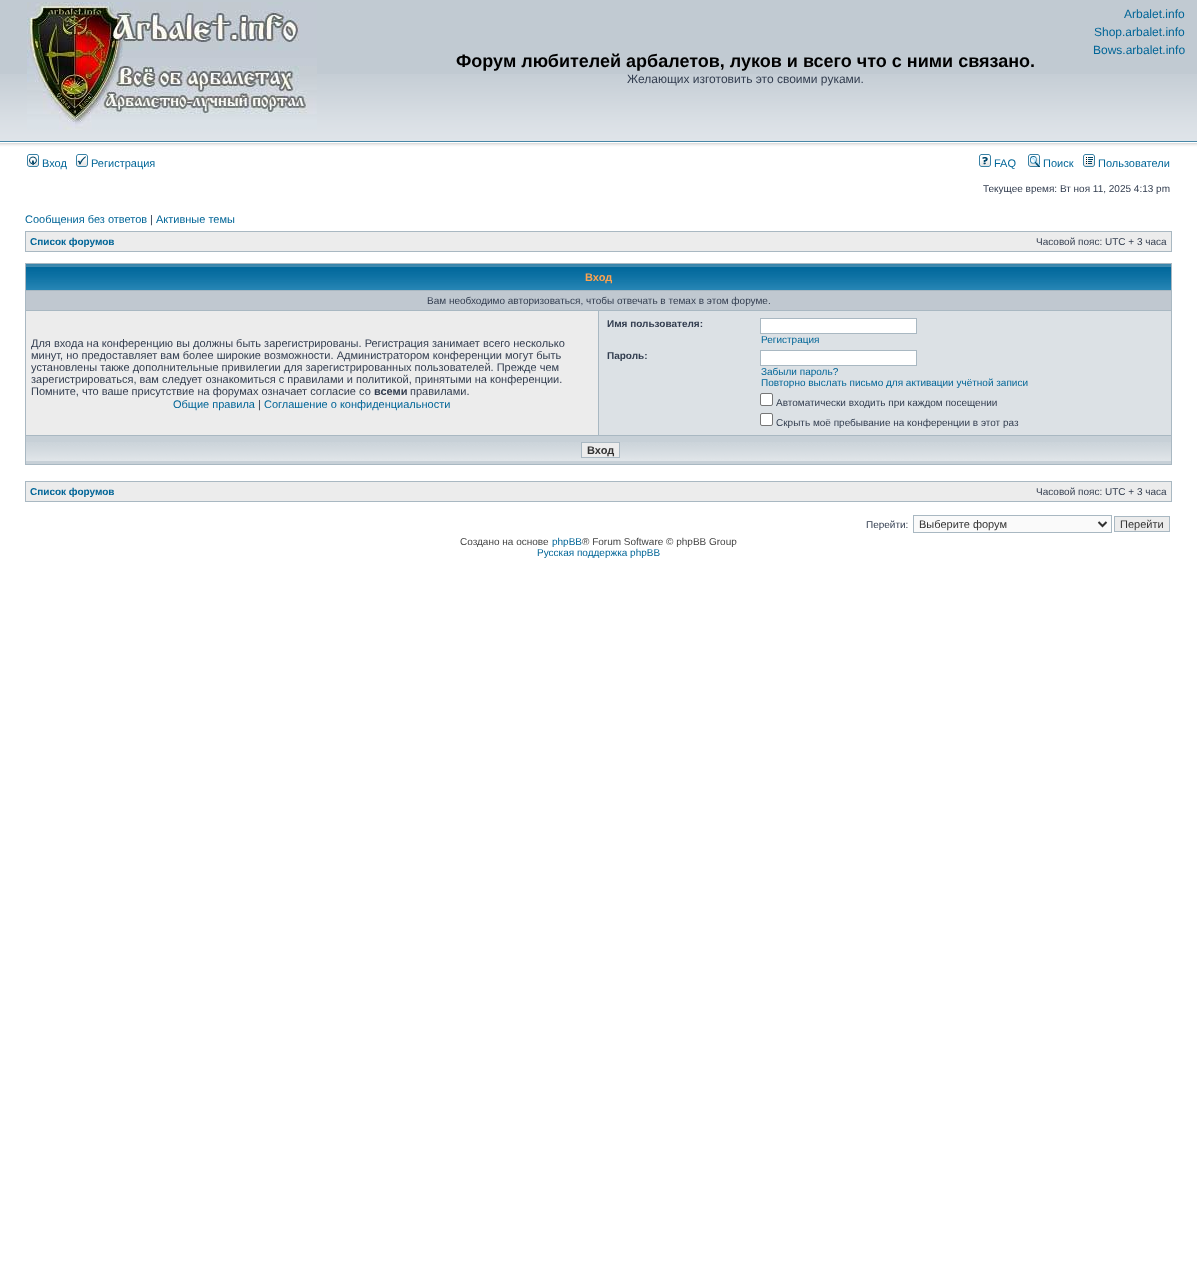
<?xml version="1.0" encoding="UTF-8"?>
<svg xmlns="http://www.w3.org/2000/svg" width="1197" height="1266">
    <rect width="100%" height="100%" fill="#FFFFFF"/>
    <rect x="0" y="0" width="1197" height="74" fill="#C1CAD2"/>
    <text x="1124" y="18" font-family="Liberation Sans" font-size="12" fill="#006597">Arbalet.info</text>
    <text x="1094" y="36" font-family="Liberation Sans" font-size="12" fill="#006597">Shop.arbalet.info</text>
    <text x="1093" y="54" font-family="Liberation Sans" font-size="12" fill="#006597">Bows.arbalet.info</text>
    <image x="0" y="74" width="1197" height="78" href="img_01.png"/>
    <image x="27" y="2" width="290" height="128" href="img_02.png"/>
    <text x="456" y="67" font-family="Liberation Sans" font-size="18" font-weight="700" fill="#000000">Форум любителей арбалетов, луков и всего что с ними связано.</text>
    <text x="627" y="83" font-family="Liberation Sans" font-size="12" fill="#323D4F">Желающих изготовить это своими руками.</text>
    <image x="27" y="154" width="12" height="13" href="img_03.png"/>
    <text x="42" y="167" font-family="Liberation Sans" font-size="11" fill="#006597">Вход</text>
    <image x="76" y="154" width="12" height="13" href="img_04.png"/>
    <text x="91" y="167" font-family="Liberation Sans" font-size="11" fill="#006597">Регистрация</text>
    <image x="979" y="154" width="12" height="13" href="img_05.png"/>
    <text x="994" y="167" font-family="Liberation Sans" font-size="11" fill="#006597">FAQ</text>
    <image x="1028" y="154" width="12" height="13" href="img_06.png"/>
    <text x="1043" y="167" font-family="Liberation Sans" font-size="11" fill="#006597">Поиск</text>
    <image x="1083" y="154" width="12" height="13" href="img_07.png"/>
    <text x="1098" y="167" font-family="Liberation Sans" font-size="11" fill="#006597">Пользователи</text>
    <text x="983" y="192" font-family="Liberation Sans" font-size="10" fill="#323D4F">Текущее время: Вт ноя 11, 2025 4:13 pm</text>
    <text x="25" y="223" font-family="Liberation Sans" font-size="11" fill="#006597">Сообщения без ответов</text>
    <text x="150" y="223" font-family="Liberation Sans" font-size="11" fill="#323D4F">|</text>
    <text x="156" y="223" font-family="Liberation Sans" font-size="11" fill="#006597">Активные темы</text>
    <rect x="25" y="231" width="1147" height="21" fill="#A9B8C2"/>
    <rect x="26" y="232" width="1145" height="19" fill="#ECECEC"/>
    <text x="30" y="245" font-family="Liberation Sans" font-size="10" font-weight="700" fill="#006597">Список форумов</text>
    <text x="1036" y="245" font-family="Liberation Sans" font-size="10" fill="#323D4F">Часовой пояс: UTC + 3 часа</text>
    <rect x="25" y="263" width="1147" height="202" fill="#A9B8C2"/>
    <image x="26" y="264" width="1145" height="26" href="img_08.png"/>
    <text x="585" y="281" font-family="Liberation Sans" font-size="11" font-weight="700" fill="#FFA34F">Вход</text>
    <rect x="26" y="291" width="1145" height="19" fill="#C0C8D0"/>
    <text x="427" y="304" font-family="Liberation Sans" font-size="10" fill="#323D4F">Вам необходимо авторизоваться, чтобы отвечать в темах в этом форуме.</text>
    <rect x="26" y="311" width="572" height="124" fill="#ECECEC"/>
    <text font-family="Liberation Sans" font-size="11" fill="#323D4F">
        <tspan x="31" y="347">Для входа на конференцию вы должны быть зарегистрированы. Регистрация занимает всего несколько</tspan>
        <tspan x="31" y="359">минут, но предоставляет вам более широкие возможности. Администратором конференции могут быть</tspan>
        <tspan x="31" y="371">установлены также дополнительные привилегии для зарегистрированных пользователей. Прежде чем</tspan>
        <tspan x="31" y="383">зарегистрироваться, вам следует ознакомиться с правилами и политикой, принятыми на конференции.</tspan>
        <tspan x="31" y="395">Помните, что ваше присутствие на форумах означает согласие со</tspan>
    </text>
    <text x="374" y="395" font-family="Liberation Sans" font-size="11" font-weight="700" fill="#323D4F">всеми</text>
    <text x="410" y="395" font-family="Liberation Sans" font-size="11" fill="#323D4F">правилами.</text>
    <text x="173" y="408" font-family="Liberation Sans" font-size="11" fill="#006597">Общие правила</text>
    <text x="258" y="408" font-family="Liberation Sans" font-size="11" fill="#323D4F">|</text>
    <text x="264" y="408" font-family="Liberation Sans" font-size="11" fill="#006597">Соглашение о конфиденциальности</text>
    <rect x="599" y="311" width="572" height="124" fill="#DCE1E5"/>
    <text x="607" y="327" font-family="Liberation Sans" font-size="10" font-weight="700" fill="#323D4F">Имя пользователя:</text>
    <rect x="760.5" y="318.5" width="156" height="15" fill="#FFFFFF" stroke="#A9B8C2"/>
    <text x="761" y="343" font-family="Liberation Sans" font-size="10" fill="#006597">Регистрация</text>
    <text x="607" y="359" font-family="Liberation Sans" font-size="10" font-weight="700" fill="#323D4F">Пароль:</text>
    <rect x="760.5" y="350.5" width="156" height="15" fill="#FFFFFF" stroke="#A9B8C2"/>
    <text font-family="Liberation Sans" font-size="10" fill="#006597">
        <tspan x="761" y="375">Забыли пароль?</tspan>
        <tspan x="761" y="386">Повторно выслать письмо для активации учётной записи</tspan>
    </text>
    <rect x="760.5" y="393.5" width="12" height="12" rx="1.5" fill="#FFFFFF" stroke="#767676"/>
    <text x="776" y="406" font-family="Liberation Sans" font-size="10" fill="#323D4F">Автоматически входить при каждом посещении</text>
    <rect x="760.5" y="413.5" width="12" height="12" rx="1.5" fill="#FFFFFF" stroke="#767676"/>
    <text x="776" y="426" font-family="Liberation Sans" font-size="10" fill="#323D4F">Скрыть моё пребывание на конференции в этот раз</text>
    <rect x="26" y="436" width="1145" height="28" fill="#C7D0D7"/>
    <image x="26" y="442" width="1145" height="19" href="img_09.png"/>
    <rect x="581.5" y="442.5" width="38" height="15" fill="#ECECEC" stroke="#A9B8C2"/>
    <text x="587" y="454" font-family="Liberation Sans" font-size="11" font-weight="700" fill="#333333">Вход</text>
    <rect x="25" y="481" width="1147" height="21" fill="#A9B8C2"/>
    <rect x="26" y="482" width="1145" height="19" fill="#ECECEC"/>
    <text x="30" y="495" font-family="Liberation Sans" font-size="10" font-weight="700" fill="#006597">Список форумов</text>
    <text x="1036" y="495" font-family="Liberation Sans" font-size="10" fill="#323D4F">Часовой пояс: UTC + 3 часа</text>
    <text x="866" y="528" font-family="Liberation Sans" font-size="10" fill="#323D4F">Перейти:</text>
    <rect x="913.5" y="515.5" width="198" height="17" fill="#FAFAFA" stroke="#A9B8C2"/>
    <path d="M 1098.5 522 L 1102.5 526 L 1106.5 522" fill="none" stroke="#333333" stroke-width="2"/>
    <text x="919" y="528" font-family="Liberation Sans" font-size="11" fill="#333333">Выберите форум</text>
    <rect x="1114.5" y="516.5" width="55" height="15" fill="#ECECEC" stroke="#A9B8C2"/>
    <text x="1120" y="528" font-family="Liberation Sans" font-size="11" fill="#333333">Перейти</text>
    <text x="460" y="545" font-family="Liberation Sans" font-size="10" fill="#444444">Создано на основе</text>
    <text x="552" y="545" font-family="Liberation Sans" font-size="10" fill="#006597">phpBB</text>
    <text x="582" y="545" font-family="Liberation Sans" font-size="10" fill="#444444">® Forum Software © phpBB Group</text>
    <text x="537" y="556" font-family="Liberation Sans" font-size="10" fill="#006597">Русская поддержка phpBB</text>
</svg>
